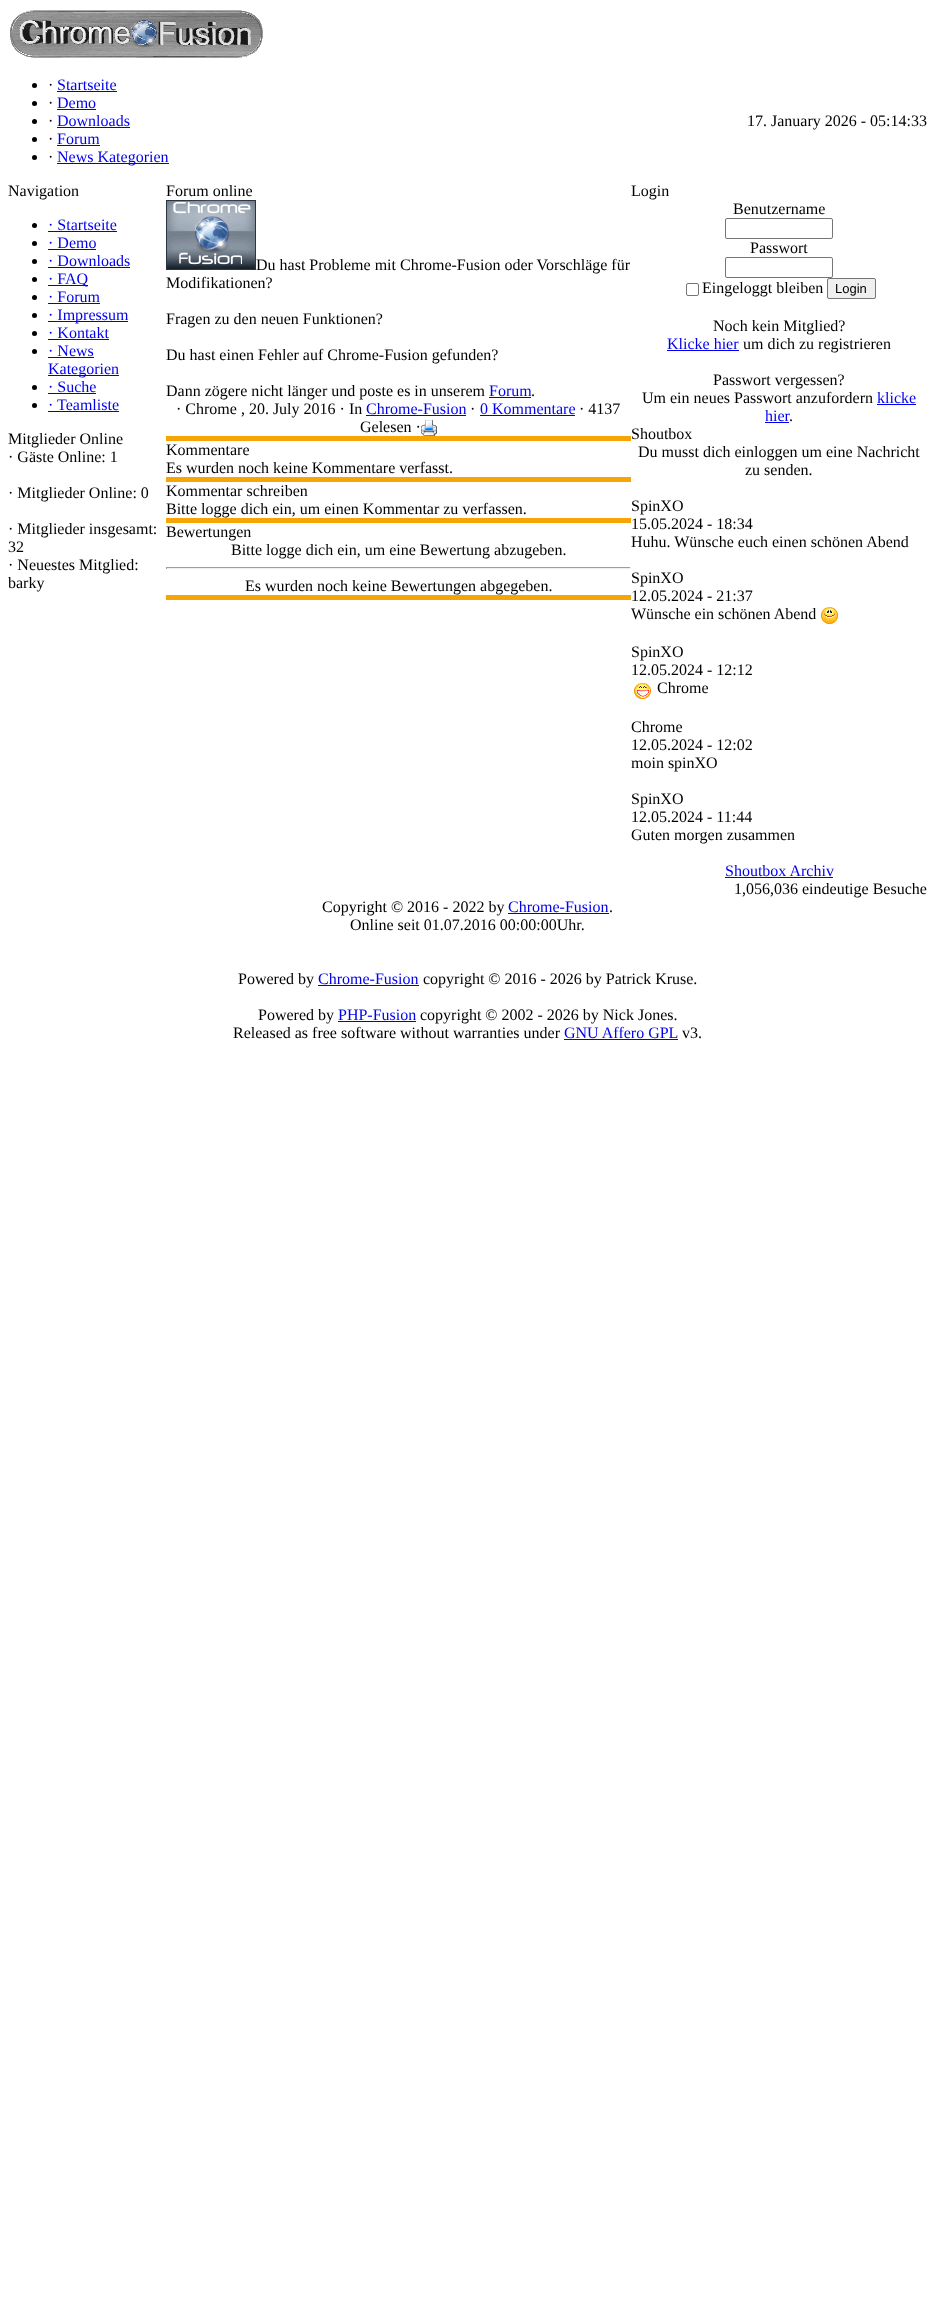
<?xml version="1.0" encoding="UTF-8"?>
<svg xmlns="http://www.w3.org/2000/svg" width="935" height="2305">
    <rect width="100%" height="100%" fill="#FFFFFF"/>
    <image x="10" y="10" width="253" height="48" href="img_01.png"/>
    <circle cx="34.5" cy="85.5" r="2.5" fill="#000000"/>
    <text x="48" y="90" font-family="Liberation Serif" font-size="16" fill="#000000">·</text>
    <text x="57" y="90" font-family="Liberation Serif" font-size="16" fill="#0000EE">Startseite</text>
    <rect x="57" y="91" width="60" height="1" fill="#0000EE"/>
    <circle cx="34.5" cy="103.5" r="2.5" fill="#000000"/>
    <text x="48" y="108" font-family="Liberation Serif" font-size="16" fill="#000000">·</text>
    <text x="57" y="108" font-family="Liberation Serif" font-size="16" fill="#0000EE">Demo</text>
    <rect x="57" y="109" width="39" height="1" fill="#0000EE"/>
    <circle cx="34.5" cy="121.5" r="2.5" fill="#000000"/>
    <text x="48" y="126" font-family="Liberation Serif" font-size="16" fill="#000000">·</text>
    <text x="57" y="126" font-family="Liberation Serif" font-size="16" fill="#0000EE">Downloads</text>
    <rect x="57" y="127" width="73" height="1" fill="#0000EE"/>
    <circle cx="34.5" cy="139.5" r="2.5" fill="#000000"/>
    <text x="48" y="144" font-family="Liberation Serif" font-size="16" fill="#000000">·</text>
    <text x="57" y="144" font-family="Liberation Serif" font-size="16" fill="#0000EE">Forum</text>
    <rect x="57" y="145" width="43" height="1" fill="#0000EE"/>
    <circle cx="34.5" cy="157.5" r="2.5" fill="#000000"/>
    <text x="48" y="162" font-family="Liberation Serif" font-size="16" fill="#000000">·</text>
    <rect x="57" y="163" width="112" height="1" fill="#0000EE"/>
    <text x="57" y="162" font-family="Liberation Serif" font-size="16" fill="#0000EE">News Kategorien</text>
    <text x="747" y="126" font-family="Liberation Serif" font-size="16" fill="#000000">17. January 2026 - 05:14:33</text>
    <text x="8" y="196" font-family="Liberation Serif" font-size="16" fill="#000000">Navigation</text>
    <circle cx="34.5" cy="225.5" r="2.5" fill="#000000"/>
    <text x="48" y="230" font-family="Liberation Serif" font-size="16" fill="#0000EE">· Startseite</text>
    <rect x="48" y="231" width="69" height="1" fill="#0000EE"/>
    <circle cx="34.5" cy="243.5" r="2.5" fill="#000000"/>
    <text x="48" y="248" font-family="Liberation Serif" font-size="16" fill="#0000EE">· Demo</text>
    <rect x="48" y="249" width="48" height="1" fill="#0000EE"/>
    <circle cx="34.5" cy="261.5" r="2.5" fill="#000000"/>
    <text x="48" y="266" font-family="Liberation Serif" font-size="16" fill="#0000EE">· Downloads</text>
    <rect x="48" y="267" width="82" height="1" fill="#0000EE"/>
    <circle cx="34.5" cy="279.5" r="2.5" fill="#000000"/>
    <rect x="48" y="285" width="40" height="1" fill="#0000EE"/>
    <text x="48" y="284" font-family="Liberation Serif" font-size="16" fill="#0000EE">· FAQ</text>
    <circle cx="34.5" cy="297.5" r="2.5" fill="#000000"/>
    <text x="48" y="302" font-family="Liberation Serif" font-size="16" fill="#0000EE">· Forum</text>
    <rect x="48" y="303" width="52" height="1" fill="#0000EE"/>
    <circle cx="34.5" cy="315.5" r="2.5" fill="#000000"/>
    <rect x="48" y="321" width="80" height="1" fill="#0000EE"/>
    <text x="48" y="320" font-family="Liberation Serif" font-size="16" fill="#0000EE">· Impressum</text>
    <circle cx="34.5" cy="333.5" r="2.5" fill="#000000"/>
    <text x="48" y="338" font-family="Liberation Serif" font-size="16" fill="#0000EE">· Kontakt</text>
    <rect x="48" y="339" width="61" height="1" fill="#0000EE"/>
    <circle cx="34.5" cy="351.5" r="2.5" fill="#000000"/>
    <text x="48" y="356" font-family="Liberation Serif" font-size="16" fill="#0000EE">· News</text>
    <rect x="48" y="357" width="46" height="1" fill="#0000EE"/>
    <rect x="48" y="375" width="71" height="1" fill="#0000EE"/>
    <text x="48" y="374" font-family="Liberation Serif" font-size="16" fill="#0000EE">Kategorien</text>
    <circle cx="34.5" cy="387.5" r="2.5" fill="#000000"/>
    <text x="48" y="392" font-family="Liberation Serif" font-size="16" fill="#0000EE">· Suche</text>
    <rect x="48" y="393" width="48" height="1" fill="#0000EE"/>
    <circle cx="34.5" cy="405.5" r="2.5" fill="#000000"/>
    <text x="48" y="410" font-family="Liberation Serif" font-size="16" fill="#0000EE">· Teamliste</text>
    <rect x="48" y="411" width="71" height="1" fill="#0000EE"/>
    <text font-family="Liberation Serif" font-size="16" fill="#000000">
        <tspan x="8" y="444">Mitglieder Online</tspan>
        <tspan x="8" y="462">· Gäste Online: 1</tspan>
    </text>
    <text x="8" y="498" font-family="Liberation Serif" font-size="16" fill="#000000">· Mitglieder Online: 0</text>
    <text font-family="Liberation Serif" font-size="16" fill="#000000">
        <tspan x="8" y="534">· Mitglieder insgesamt:</tspan>
        <tspan x="8" y="552">32</tspan>
        <tspan x="8" y="570">· Neuestes Mitglied:</tspan>
        <tspan x="8" y="588">barky</tspan>
    </text>
    <text x="166" y="196" font-family="Liberation Serif" font-size="16" fill="#000000">Forum online</text>
    <image x="166" y="200" width="90" height="70" href="img_02.png"/>
    <text x="256" y="270" font-family="Liberation Serif" font-size="16" fill="#000000">Du hast Probleme mit Chrome-Fusion oder Vorschläge für</text>
    <text x="166" y="288" font-family="Liberation Serif" font-size="16" fill="#000000">Modifikationen?</text>
    <text x="166" y="324" font-family="Liberation Serif" font-size="16" fill="#000000">Fragen zu den neuen Funktionen?</text>
    <text x="166" y="360" font-family="Liberation Serif" font-size="16" fill="#000000">Du hast einen Fehler auf Chrome-Fusion gefunden?</text>
    <text x="166" y="396" font-family="Liberation Serif" font-size="16" fill="#000000">Dann zögere nicht länger und poste es in unserem</text>
    <text x="489" y="396" font-family="Liberation Serif" font-size="16" fill="#0000EE">Forum</text>
    <rect x="489" y="397" width="42" height="1" fill="#0000EE"/>
    <text x="531" y="396" font-family="Liberation Serif" font-size="16" fill="#000000">.</text>
    <text x="176" y="414" font-family="Liberation Serif" font-size="16" fill="#000000">· Chrome , 20. July 2016 · In</text>
    <text x="366" y="414" font-family="Liberation Serif" font-size="16" fill="#0000EE">Chrome-Fusion</text>
    <rect x="366" y="415" width="100" height="1" fill="#0000EE"/>
    <text x="470" y="414" font-family="Liberation Serif" font-size="16" fill="#000000">·</text>
    <text x="480" y="414" font-family="Liberation Serif" font-size="16" fill="#0000EE">0 Kommentare</text>
    <rect x="480" y="415" width="95" height="1" fill="#0000EE"/>
    <text x="579" y="414" font-family="Liberation Serif" font-size="16" fill="#000000">· 4137</text>
    <text x="360" y="432" font-family="Liberation Serif" font-size="16" fill="#000000">Gelesen ·</text>
    <image x="421" y="420" width="16" height="16" href="img_03.png"/>
    <rect x="166" y="436" width="465" height="5" fill="#F6A504"/>
    <text font-family="Liberation Serif" font-size="16" fill="#000000">
        <tspan x="166" y="455">Kommentare</tspan>
        <tspan x="166" y="473">Es wurden noch keine Kommentare verfasst.</tspan>
    </text>
    <rect x="166" y="477" width="465" height="5" fill="#F6A504"/>
    <text font-family="Liberation Serif" font-size="16" fill="#000000">
        <tspan x="166" y="496">Kommentar schreiben</tspan>
        <tspan x="166" y="514">Bitte logge dich ein, um einen Kommentar zu verfassen.</tspan>
    </text>
    <rect x="166" y="518" width="465" height="5" fill="#F6A504"/>
    <text x="166" y="537" font-family="Liberation Serif" font-size="16" fill="#000000">Bewertungen</text>
    <text x="231" y="555" font-family="Liberation Serif" font-size="16" fill="#000000">Bitte logge dich ein, um eine Bewertung abzugeben.</text>
    <rect x="166" y="567" width="465" height="1" fill="#9F9F9F"/>
    <rect x="630" y="567" width="1" height="2" fill="#EEEEEE"/>
    <rect x="166" y="568" width="465" height="1" fill="#EEEEEE"/>
    <rect x="166" y="567" width="1" height="2" fill="#9F9F9F"/>
    <text x="245" y="591" font-family="Liberation Serif" font-size="16" fill="#000000">Es wurden noch keine Bewertungen abgegeben.</text>
    <rect x="166" y="595" width="465" height="5" fill="#F6A504"/>
    <text x="631" y="196" font-family="Liberation Serif" font-size="16" fill="#000000">Login</text>
    <text x="733" y="214" font-family="Liberation Serif" font-size="16" fill="#000000">Benutzername</text>
    <rect x="725.5" y="218.5" width="107" height="20" rx="1.5" fill="none" stroke="#767676"/>
    <text x="750" y="253" font-family="Liberation Serif" font-size="16" fill="#000000">Passwort</text>
    <rect x="725.5" y="257.5" width="107" height="20" rx="1.5" fill="none" stroke="#767676"/>
    <rect x="686.5" y="283.5" width="12" height="12" rx="1.5" fill="none" stroke="#767676"/>
    <text x="702" y="293" font-family="Liberation Serif" font-size="16" fill="#000000">Eingeloggt bleiben</text>
    <rect x="827.5" y="278.5" width="48" height="20" rx="1.5" fill="#EFEFEF" stroke="#767676"/>
    <text x="835" y="293" font-family="Liberation Sans" font-size="13" fill="#000000">Login</text>
    <text x="713" y="331" font-family="Liberation Serif" font-size="16" fill="#000000">Noch kein Mitglied?</text>
    <text x="667" y="349" font-family="Liberation Serif" font-size="16" fill="#0000EE">Klicke hier</text>
    <rect x="667" y="350" width="72" height="1" fill="#0000EE"/>
    <text x="743" y="349" font-family="Liberation Serif" font-size="16" fill="#000000">um dich zu registrieren</text>
    <text x="713" y="385" font-family="Liberation Serif" font-size="16" fill="#000000">Passwort vergessen?</text>
    <text x="642" y="403" font-family="Liberation Serif" font-size="16" fill="#000000">Um ein neues Passwort anzufordern</text>
    <text x="877" y="403" font-family="Liberation Serif" font-size="16" fill="#0000EE">klicke</text>
    <rect x="877" y="404" width="39" height="1" fill="#0000EE"/>
    <text x="765" y="421" font-family="Liberation Serif" font-size="16" fill="#0000EE">hier</text>
    <rect x="765" y="422" width="24" height="1" fill="#0000EE"/>
    <text x="789" y="421" font-family="Liberation Serif" font-size="16" fill="#000000">.</text>
    <text x="631" y="439" font-family="Liberation Serif" font-size="16" fill="#000000">Shoutbox</text>
    <text x="638" y="457" font-family="Liberation Serif" font-size="16" fill="#000000">Du musst dich einloggen um eine Nachricht</text>
    <text x="745" y="475" font-family="Liberation Serif" font-size="16" fill="#000000">zu senden.</text>
    <text font-family="Liberation Serif" font-size="16" fill="#000000">
        <tspan x="631" y="511">SpinXO</tspan>
        <tspan x="631" y="529">15.05.2024 - 18:34</tspan>
        <tspan x="631" y="547">Huhu. Wünsche euch einen schönen Abend</tspan>
    </text>
    <text font-family="Liberation Serif" font-size="16" fill="#000000">
        <tspan x="631" y="583">SpinXO</tspan>
        <tspan x="631" y="601">12.05.2024 - 21:37</tspan>
        <tspan x="631" y="619">Wünsche ein schönen Abend</tspan>
    </text>
    <image x="821" y="607" width="17" height="17" href="img_04.png"/>
    <text font-family="Liberation Serif" font-size="16" fill="#000000">
        <tspan x="631" y="657">SpinXO</tspan>
        <tspan x="631" y="675">12.05.2024 - 12:12</tspan>
    </text>
    <image x="634" y="683" width="17" height="16" href="img_05.png"/>
    <text x="657" y="693" font-family="Liberation Serif" font-size="16" fill="#000000">Chrome</text>
    <text font-family="Liberation Serif" font-size="16" fill="#000000">
        <tspan x="631" y="732">Chrome</tspan>
        <tspan x="631" y="750">12.05.2024 - 12:02</tspan>
        <tspan x="631" y="768">moin spinXO</tspan>
    </text>
    <text font-family="Liberation Serif" font-size="16" fill="#000000">
        <tspan x="631" y="804">SpinXO</tspan>
        <tspan x="631" y="822">12.05.2024 - 11:44</tspan>
        <tspan x="631" y="840">Guten morgen zusammen</tspan>
    </text>
    <text x="725" y="876" font-family="Liberation Serif" font-size="16" fill="#0000EE">Shoutbox Archiv</text>
    <rect x="725" y="877" width="108" height="1" fill="#0000EE"/>
    <text x="734" y="894" font-family="Liberation Serif" font-size="16" fill="#000000">1,056,036 eindeutige Besuche</text>
    <text x="322" y="912" font-family="Liberation Serif" font-size="16" fill="#000000">Copyright © 2016 - 2022 by</text>
    <text x="508" y="912" font-family="Liberation Serif" font-size="16" fill="#0000EE">Chrome-Fusion</text>
    <rect x="508" y="913" width="101" height="1" fill="#0000EE"/>
    <text x="609" y="912" font-family="Liberation Serif" font-size="16" fill="#000000">.</text>
    <text x="350" y="930" font-family="Liberation Serif" font-size="16" fill="#000000">Online seit 01.07.2016 00:00:00Uhr.</text>
    <text x="238" y="984" font-family="Liberation Serif" font-size="16" fill="#000000">Powered by</text>
    <text x="318" y="984" font-family="Liberation Serif" font-size="16" fill="#0000EE">Chrome-Fusion</text>
    <rect x="318" y="985" width="101" height="1" fill="#0000EE"/>
    <text x="423" y="984" font-family="Liberation Serif" font-size="16" fill="#000000">copyright © 2016 - 2026 by Patrick Kruse.</text>
    <text x="258" y="1020" font-family="Liberation Serif" font-size="16" fill="#000000">Powered by</text>
    <text x="338" y="1020" font-family="Liberation Serif" font-size="16" fill="#0000EE">PHP-Fusion</text>
    <rect x="338" y="1021" width="78" height="1" fill="#0000EE"/>
    <text x="420" y="1020" font-family="Liberation Serif" font-size="16" fill="#000000">copyright © 2002 - 2026 by Nick Jones.</text>
    <text x="233" y="1038" font-family="Liberation Serif" font-size="16" fill="#000000">Released as free software without warranties under</text>
    <text x="564" y="1038" font-family="Liberation Serif" font-size="16" fill="#0000EE">GNU Affero GPL</text>
    <rect x="564" y="1039" width="114" height="1" fill="#0000EE"/>
    <text x="682" y="1038" font-family="Liberation Serif" font-size="16" fill="#000000">v3.</text>
</svg>
